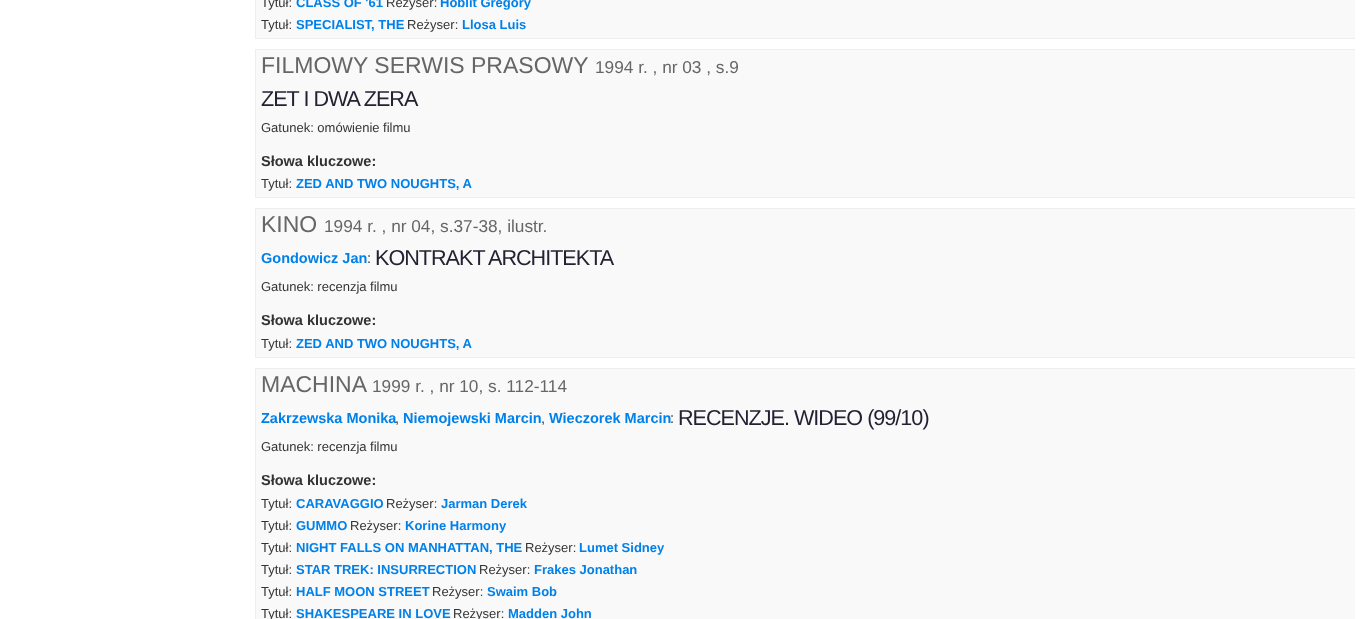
<?xml version="1.0" encoding="UTF-8"?>
<svg xmlns="http://www.w3.org/2000/svg" width="1365" height="619">
    <rect width="100%" height="100%" fill="#FFFFFF"/>
    <rect x="256" y="0" width="1099" height="38" fill="#F9F9F9"/>
    <rect x="255" y="38" width="1100" height="1" fill="#EEEEEE"/>
    <rect x="255" y="0" width="1" height="39" fill="#EEEEEE"/>
    <text x="261" y="7" font-family="Liberation Sans" font-size="13" fill="#333333">Tytuł:</text>
    <text x="296" y="7" font-family="Liberation Sans" font-size="13" font-weight="700" fill="#0081EA">CLASS OF '61</text>
    <text x="386" y="7" font-family="Liberation Sans" font-size="13" fill="#333333">Reżyser:</text>
    <text x="440" y="7" font-family="Liberation Sans" font-size="13" font-weight="700" fill="#0081EA">Hoblit Gregory</text>
    <text x="261" y="29" font-family="Liberation Sans" font-size="13" fill="#333333">Tytuł:</text>
    <text x="296" y="29" font-family="Liberation Sans" font-size="13" font-weight="700" fill="#0081EA">SPECIALIST, THE</text>
    <text x="407" y="29" font-family="Liberation Sans" font-size="13" fill="#333333">Reżyser:</text>
    <text x="462" y="29" font-family="Liberation Sans" font-size="13" font-weight="700" fill="#0081EA">Llosa Luis</text>
    <rect x="256" y="50" width="1099" height="147" fill="#F9F9F9"/>
    <rect x="255" y="49" width="1100" height="1" fill="#EEEEEE"/>
    <rect x="255" y="197" width="1100" height="1" fill="#EEEEEE"/>
    <rect x="255" y="49" width="1" height="149" fill="#EEEEEE"/>
    <text x="261" y="73" font-family="Liberation Sans" font-size="23" fill="#666666">FILMOWY SERWIS PRASOWY</text>
    <text x="595" y="73" font-family="Liberation Sans" font-size="17.25" fill="#666666">1994 r. , nr 03 , s.9</text>
    <text x="261" y="106" font-family="Liberation Sans" font-size="21.6" letter-spacing="-1" fill="#222233">ZET I DWA ZERA</text>
    <text x="261" y="132" font-family="Liberation Sans" font-size="13" fill="#333333">Gatunek: omówienie filmu</text>
    <text x="261" y="166" font-family="Liberation Sans" font-size="14.5" font-weight="700" fill="#333333">Słowa kluczowe:</text>
    <text x="261" y="188" font-family="Liberation Sans" font-size="13" fill="#333333">Tytuł:</text>
    <text x="296" y="188" font-family="Liberation Sans" font-size="13" font-weight="700" fill="#0081EA">ZED AND TWO NOUGHTS, A</text>
    <rect x="256" y="209" width="1099" height="148" fill="#F9F9F9"/>
    <rect x="255" y="208" width="1100" height="1" fill="#EEEEEE"/>
    <rect x="255" y="357" width="1100" height="1" fill="#EEEEEE"/>
    <rect x="255" y="208" width="1" height="150" fill="#EEEEEE"/>
    <text x="261" y="232" font-family="Liberation Sans" font-size="23" fill="#666666">KINO</text>
    <text x="324" y="232" font-family="Liberation Sans" font-size="17.25" fill="#666666">1994 r. , nr 04, s.37-38, ilustr.</text>
    <text x="261" y="263" font-family="Liberation Sans" font-size="14.5" font-weight="700" fill="#0081EA">Gondowicz Jan</text>
    <text x="367" y="263" font-family="Liberation Sans" font-size="14.5" fill="#333333">:</text>
    <text x="375" y="265" font-family="Liberation Sans" font-size="21.6" letter-spacing="-1" fill="#222233">KONTRAKT ARCHITEKTA</text>
    <text x="261" y="291" font-family="Liberation Sans" font-size="13" fill="#333333">Gatunek: recenzja filmu</text>
    <text x="261" y="325" font-family="Liberation Sans" font-size="14.5" font-weight="700" fill="#333333">Słowa kluczowe:</text>
    <text x="261" y="348" font-family="Liberation Sans" font-size="13" fill="#333333">Tytuł:</text>
    <text x="296" y="348" font-family="Liberation Sans" font-size="13" font-weight="700" fill="#0081EA">ZED AND TWO NOUGHTS, A</text>
    <rect x="256" y="369" width="1099" height="250" fill="#F9F9F9"/>
    <rect x="255" y="368" width="1100" height="1" fill="#EEEEEE"/>
    <rect x="255" y="368" width="1" height="251" fill="#EEEEEE"/>
    <text x="261" y="392" font-family="Liberation Sans" font-size="23" fill="#666666">MACHINA</text>
    <text x="372" y="392" font-family="Liberation Sans" font-size="17.25" fill="#666666">1999 r. , nr 10, s. 112-114</text>
    <text x="261" y="423" font-family="Liberation Sans" font-size="14.5" font-weight="700" fill="#0081EA">Zakrzewska Monika</text>
    <text x="395" y="423" font-family="Liberation Sans" font-size="14.5" fill="#333333">,</text>
    <text x="403" y="423" font-family="Liberation Sans" font-size="14.5" font-weight="700" fill="#0081EA">Niemojewski Marcin</text>
    <text x="541" y="423" font-family="Liberation Sans" font-size="14.5" fill="#333333">,</text>
    <text x="549" y="423" font-family="Liberation Sans" font-size="14.5" font-weight="700" fill="#0081EA">Wieczorek Marcin</text>
    <text x="670" y="423" font-family="Liberation Sans" font-size="14.5" fill="#333333">:</text>
    <text x="678" y="425" font-family="Liberation Sans" font-size="21.6" letter-spacing="-1" fill="#222233">RECENZJE. WIDEO (99/10)</text>
    <text x="261" y="451" font-family="Liberation Sans" font-size="13" fill="#333333">Gatunek: recenzja filmu</text>
    <text x="261" y="485" font-family="Liberation Sans" font-size="14.5" font-weight="700" fill="#333333">Słowa kluczowe:</text>
    <text x="261" y="508" font-family="Liberation Sans" font-size="13" fill="#333333">Tytuł:</text>
    <text x="296" y="508" font-family="Liberation Sans" font-size="13" font-weight="700" fill="#0081EA">CARAVAGGIO</text>
    <text x="386" y="508" font-family="Liberation Sans" font-size="13" fill="#333333">Reżyser:</text>
    <text x="441" y="508" font-family="Liberation Sans" font-size="13" font-weight="700" fill="#0081EA">Jarman Derek</text>
    <text x="261" y="530" font-family="Liberation Sans" font-size="13" fill="#333333">Tytuł:</text>
    <text x="296" y="530" font-family="Liberation Sans" font-size="13" font-weight="700" fill="#0081EA">GUMMO</text>
    <text x="350" y="530" font-family="Liberation Sans" font-size="13" fill="#333333">Reżyser:</text>
    <text x="405" y="530" font-family="Liberation Sans" font-size="13" font-weight="700" fill="#0081EA">Korine Harmony</text>
    <text x="261" y="552" font-family="Liberation Sans" font-size="13" fill="#333333">Tytuł:</text>
    <text x="296" y="552" font-family="Liberation Sans" font-size="13" font-weight="700" fill="#0081EA">NIGHT FALLS ON MANHATTAN, THE</text>
    <text x="525" y="552" font-family="Liberation Sans" font-size="13" fill="#333333">Reżyser:</text>
    <text x="579" y="552" font-family="Liberation Sans" font-size="13" font-weight="700" fill="#0081EA">Lumet Sidney</text>
    <text x="261" y="574" font-family="Liberation Sans" font-size="13" fill="#333333">Tytuł:</text>
    <text x="296" y="574" font-family="Liberation Sans" font-size="13" font-weight="700" fill="#0081EA">STAR TREK: INSURRECTION</text>
    <text x="479" y="574" font-family="Liberation Sans" font-size="13" fill="#333333">Reżyser:</text>
    <text x="534" y="574" font-family="Liberation Sans" font-size="13" font-weight="700" fill="#0081EA">Frakes Jonathan</text>
    <text x="261" y="596" font-family="Liberation Sans" font-size="13" fill="#333333">Tytuł:</text>
    <text x="296" y="596" font-family="Liberation Sans" font-size="13" font-weight="700" fill="#0081EA">HALF MOON STREET</text>
    <text x="432" y="596" font-family="Liberation Sans" font-size="13" fill="#333333">Reżyser:</text>
    <text x="487" y="596" font-family="Liberation Sans" font-size="13" font-weight="700" fill="#0081EA">Swaim Bob</text>
    <text x="261" y="618" font-family="Liberation Sans" font-size="13" fill="#333333">Tytuł:</text>
    <text x="296" y="618" font-family="Liberation Sans" font-size="13" font-weight="700" fill="#0081EA">SHAKESPEARE IN LOVE</text>
    <text x="453" y="618" font-family="Liberation Sans" font-size="13" fill="#333333">Reżyser:</text>
    <text x="508" y="618" font-family="Liberation Sans" font-size="13" font-weight="700" fill="#0081EA">Madden John</text>
</svg>
